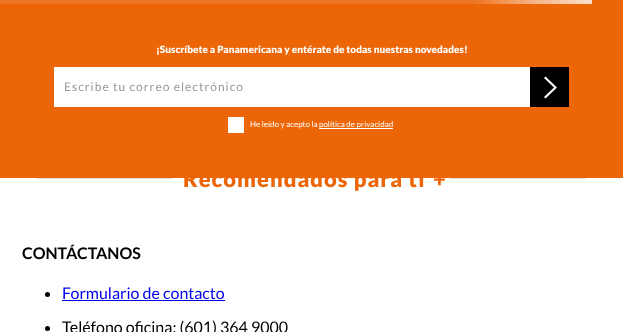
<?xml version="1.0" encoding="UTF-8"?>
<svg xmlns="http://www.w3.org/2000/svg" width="623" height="332">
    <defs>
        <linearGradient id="g1" gradientUnits="userSpaceOnUse" x1="0" y1="2" x2="592" y2="2"><stop offset="0.8" stop-color="#EE7521"/><stop offset="0.9" stop-color="#F6B384"/><stop offset="1" stop-color="#FBE0CE"/></linearGradient>
    </defs>
    <rect width="100%" height="100%" fill="#FFFFFF"/>
    <rect x="0" y="0" width="623" height="178" fill="#EC6608"/>
    <rect x="0" y="0" width="592" height="4" fill="url(#g1)"/>
    <text x="156" y="53" font-family="Lato" font-size="10" font-weight="900" fill="#FFFFFF">¡Suscríbete a Panamericana y entérate de todas nuestras novedades!</text>
    <rect x="54" y="67" width="476" height="40" fill="#FFFFFF"/>
    <text x="64" y="91" font-family="Lato" font-size="12" letter-spacing="1" fill="#979899">Escribe tu correo electrónico</text>
    <rect x="530" y="67" width="39" height="40" fill="#000000"/>
    <path d="M 544 78 L 545.5 76.5 L 557 87.5 L 545.5 98.5 L 544 97 L 554 87.5 Z" fill="#FFFFFF"/>
    <rect x="228" y="117" width="16" height="16" fill="#FFFFFF"/>
    <text x="250" y="127" font-family="Lato" font-size="8" fill="#FFFFFF">He leído y acepto la</text>
    <rect x="319" y="128" width="74" height="1" fill="#FFFFFF"/>
    <text x="319" y="127" font-family="Lato" font-size="8" fill="#FFFFFF">política de privacidad</text>
    <rect x="37" y="178" width="136" height="1" fill="#E0E0E0"/>
    <text x="183" y="187" font-family="Lato" font-size="22" font-weight="900" letter-spacing="1" fill="#EC6608">Recomendados para ti</text>
    <text x="433" y="187" font-family="Lato" font-size="22" font-weight="900" letter-spacing="1" fill="#EC6608">+</text>
    <rect x="450" y="178" width="136" height="1" fill="#E0E0E0"/>
    <text x="22" y="259" font-family="Lato" font-size="16" font-weight="700" fill="#000000">CONTÁCTANOS</text>
    <circle cx="47.5" cy="294.5" r="2.5" fill="#000000"/>
    <text x="62" y="299" font-family="Lato" font-size="16" fill="#0000EE">Formulario de contacto</text>
    <rect x="62" y="300" width="163" height="1" fill="#0000EE"/>
    <circle cx="47.5" cy="328.5" r="2.5" fill="#000000"/>
    <text x="62" y="333" font-family="Lato" font-size="16" fill="#000000">Teléfono oficina: (601) 364 9000</text>
</svg>
